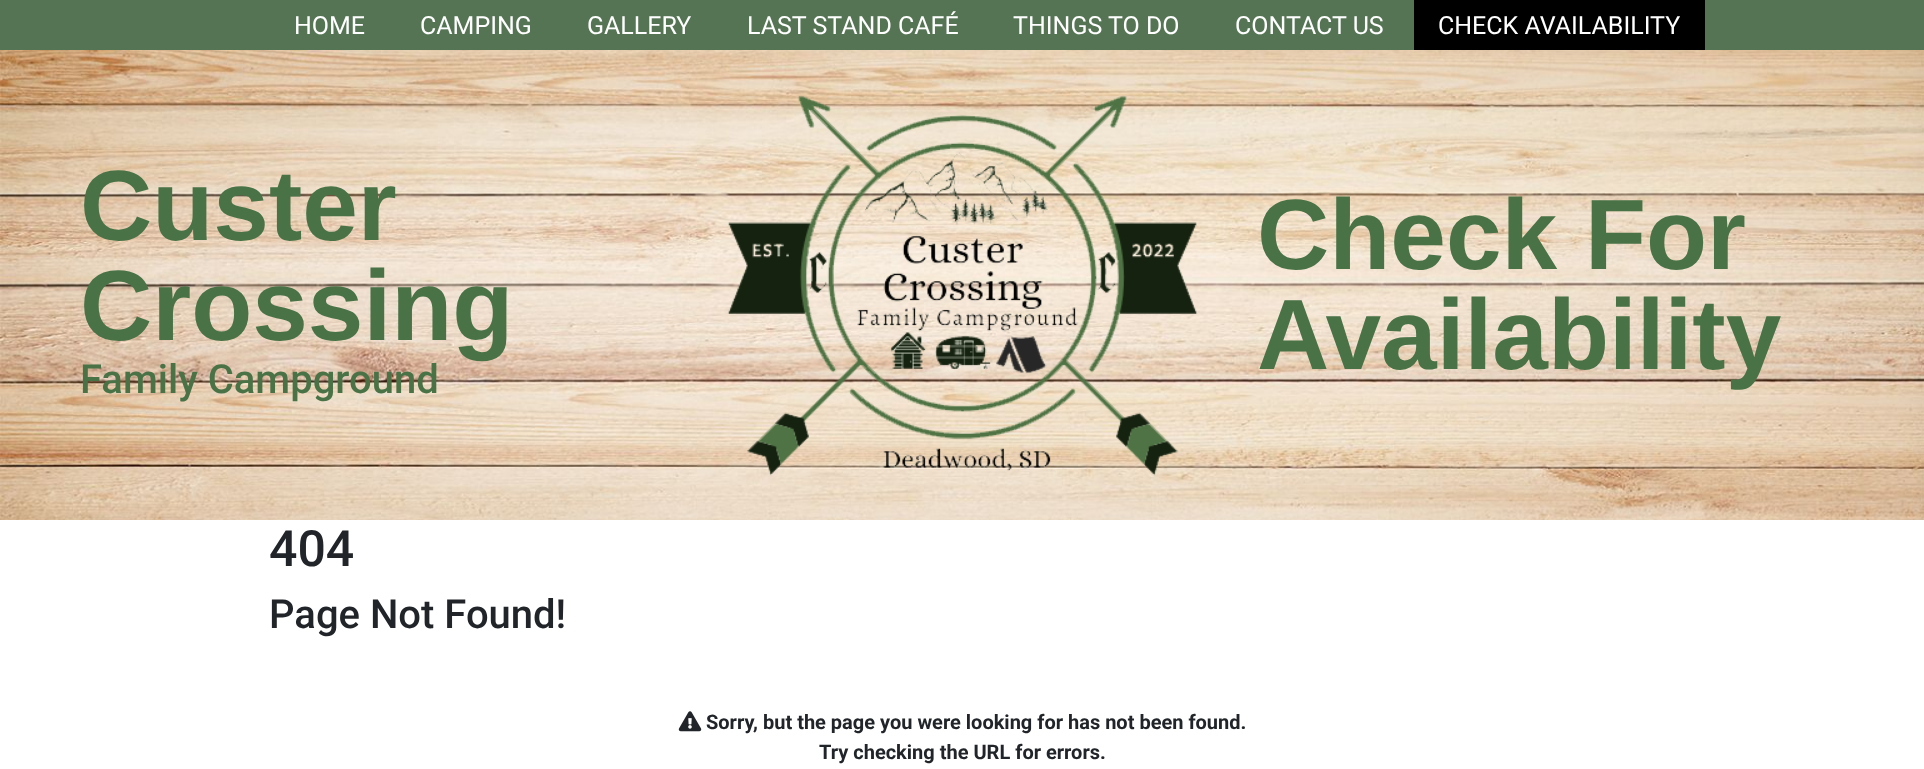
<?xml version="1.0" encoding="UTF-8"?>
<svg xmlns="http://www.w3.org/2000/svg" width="1924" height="769">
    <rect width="100%" height="100%" fill="#FFFFFF"/>
    <rect x="0" y="0" width="1924" height="50" fill="#557454"/>
    <text x="294" y="34" font-family="Roboto" font-size="25" fill="#FFFFFF">HOME</text>
    <text x="420" y="34" font-family="Roboto" font-size="25" fill="#FFFFFF">CAMPING</text>
    <text x="587" y="34" font-family="Roboto" font-size="25" fill="#FFFFFF">GALLERY</text>
    <text x="747" y="34" font-family="Roboto" font-size="25" fill="#FFFFFF">LAST STAND CAFÉ</text>
    <text x="1013" y="34" font-family="Roboto" font-size="25" fill="#FFFFFF">THINGS TO DO</text>
    <text x="1235" y="34" font-family="Roboto" font-size="25" fill="#FFFFFF">CONTACT US</text>
    <rect x="1414" y="0" width="291" height="50" fill="#000000"/>
    <text x="1438" y="34" font-family="Roboto" font-size="25" fill="#FFFFFF">CHECK AVAILABILITY</text>
    <image x="0" y="50" width="1924" height="470" href="img_01.png"/>
    <text font-family="Liberation Sans" font-size="100" font-weight="700" fill="#497347">
        <tspan x="80" y="240">Custer</tspan>
        <tspan x="80" y="340">Crossing</tspan>
    </text>
    <text x="80" y="393" font-family="Roboto" font-size="40" font-weight="500" fill="#497347">Family Campground</text>
    <image x="727" y="95" width="471" height="381" href="img_02.png"/>
    <text font-family="Liberation Sans" font-size="100" font-weight="700" fill="#497347">
        <tspan x="1257" y="269">Check For</tspan>
        <tspan x="1257" y="369">Availability</tspan>
    </text>
    <text x="269" y="566" font-family="Roboto" font-size="50" font-weight="500" fill="#212529">404</text>
    <text x="269" y="628" font-family="Roboto" font-size="40" font-weight="500" fill="#212529">Page Not Found!</text>
    <image x="678" y="711" width="24" height="21" href="img_03.png"/>
    <text x="706" y="729" font-family="Roboto" font-size="20" font-weight="700" fill="#212529">Sorry, but the page you were looking for has not been found.</text>
    <text x="819" y="759" font-family="Roboto" font-size="20" font-weight="700" fill="#212529">Try checking the URL for errors.</text>
</svg>
